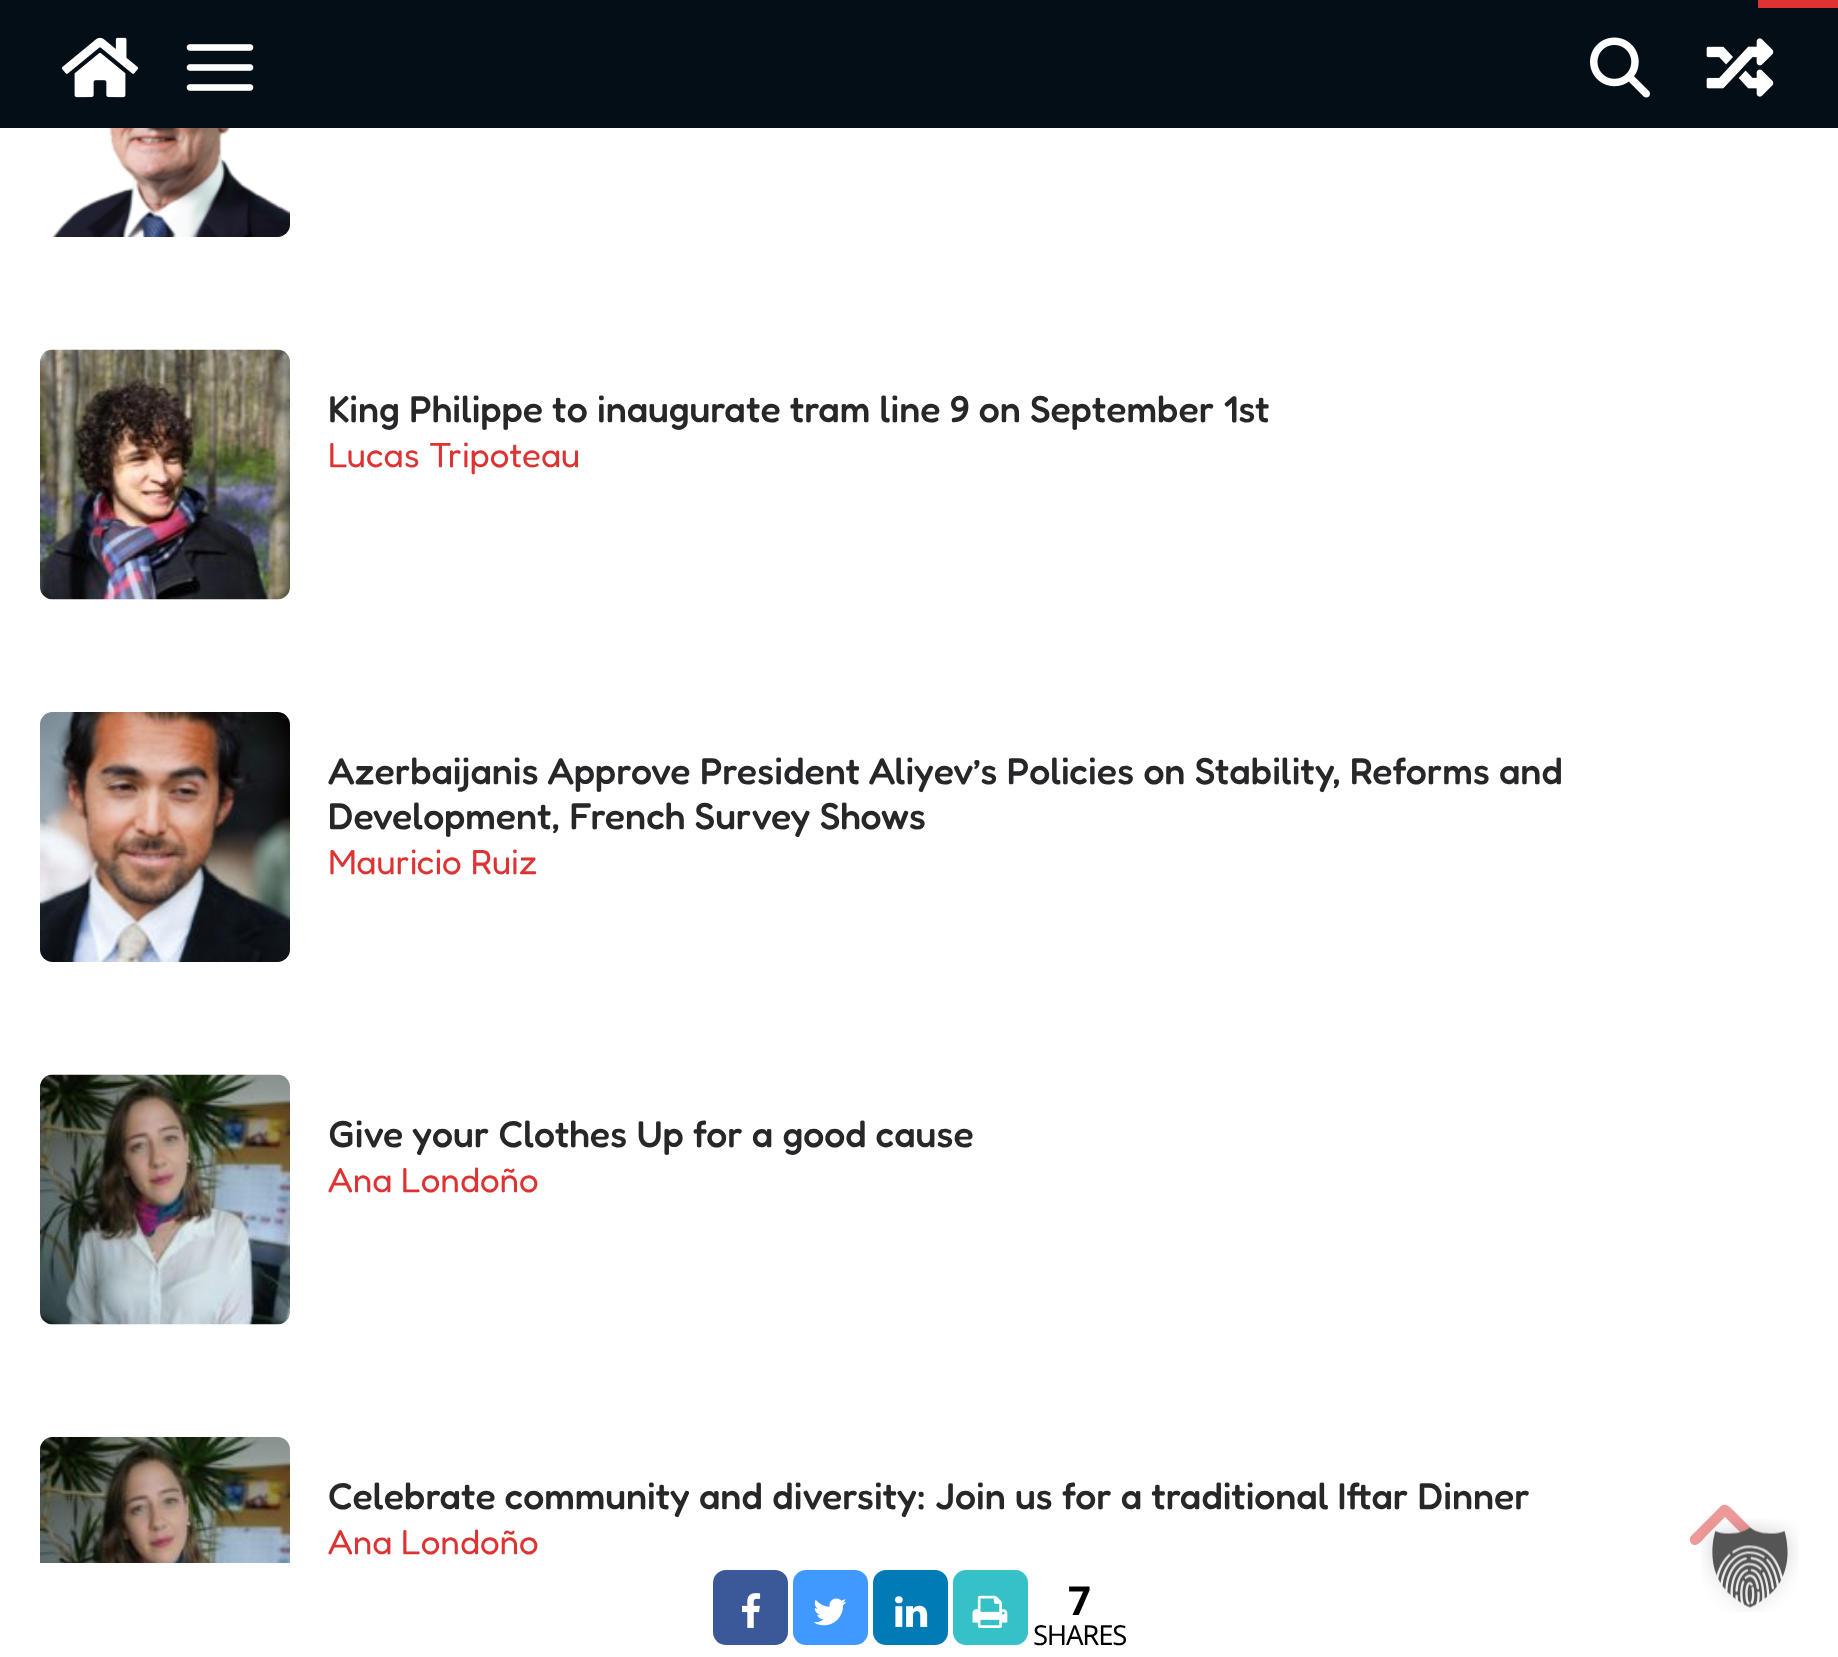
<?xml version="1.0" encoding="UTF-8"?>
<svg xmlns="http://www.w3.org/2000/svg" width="1838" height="1657">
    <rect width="100%" height="100%" fill="#FFFFFF"/>
    <rect x="0" y="0" width="1758" height="8" fill="#040E16"/>
    <rect x="0" y="8" width="1838" height="120" fill="#040E16"/>
    <rect x="1758" y="0" width="80" height="8" fill="#DD3333"/>
    <image x="61" y="37" width="78" height="61" href="img_01.png"/>
    <image x="186" y="44" width="68" height="47" href="img_02.png"/>
    <image x="1590" y="37" width="60" height="61" href="img_03.png"/>
    <image x="1706" y="38" width="68" height="59" href="img_04.png"/>
    <image x="52" y="128" width="238" height="109" href="img_05.png"/>
    <image x="40" y="349" width="250" height="251" href="img_06.png"/>
    <text x="328" y="422" font-family="Fredoka" font-size="37.5" font-weight="500" fill="#27272A">King Philippe to inaugurate tram line 9 on September 1st</text>
    <text x="328" y="467" font-family="Fredoka" font-size="35" fill="#DD3333">Lucas Tripoteau</text>
    <image x="40" y="712" width="250" height="250" href="img_07.png"/>
    <text font-family="Fredoka" font-size="37.5" font-weight="500" fill="#27272A">
        <tspan x="328" y="784">Azerbaijanis Approve President Aliyev’s Policies on Stability, Reforms and</tspan>
        <tspan x="328" y="829">Development, French Survey Shows</tspan>
    </text>
    <text x="328" y="874" font-family="Fredoka" font-size="35" fill="#DD3333">Mauricio Ruiz</text>
    <image x="40" y="1074" width="250" height="251" href="img_08.png"/>
    <text x="328" y="1147" font-family="Fredoka" font-size="37.5" font-weight="500" fill="#27272A">Give your Clothes Up for a good cause</text>
    <text x="328" y="1192" font-family="Fredoka" font-size="35" fill="#DD3333">Ana Londoño</text>
    <image x="40" y="1437" width="250" height="126" href="img_09.png"/>
    <text x="328" y="1509" font-family="Fredoka" font-size="37.5" font-weight="500" fill="#27272A">Celebrate community and diversity: Join us for a traditional Iftar Dinner</text>
    <text x="328" y="1554" font-family="Fredoka" font-size="35" fill="#DD3333">Ana Londoño</text>
    <path d="M 1721 1506 C 1726 1502 1731 1508 1734 1511 L 1754 1531 C 1756 1534 1763 1538 1759 1543 C 1758 1545 1756 1545 1754 1545 C 1750 1545 1745 1537 1743 1535 L 1725 1517 L 1707 1535 C 1705 1537 1700 1544 1696 1545 C 1691 1546 1688 1540 1691 1536 Z" fill="#EE9999"/>
    <rect x="713" y="1570" width="75" height="75" rx="13" fill="#3B5998"/>
    <image x="742" y="1593" width="19" height="35" href="img_10.png"/>
    <rect x="793" y="1570" width="75" height="75" rx="13" fill="#4099FF"/>
    <image x="813" y="1598" width="34" height="28" href="img_11.png"/>
    <rect x="873" y="1570" width="75" height="75" rx="13" fill="#007BB6"/>
    <image x="895" y="1596" width="33" height="31" href="img_12.png"/>
    <rect x="953" y="1570" width="75" height="75" rx="13" fill="#36C1C8"/>
    <image x="972" y="1595" width="36" height="33" href="img_13.png"/>
    <text x="1068" y="1615" font-family="Noto Sans" font-size="40" font-weight="700" letter-spacing="1" fill="#000000">7</text>
    <text x="1033" y="1645" font-family="Noto Sans" font-size="27.5" letter-spacing="-1.25" fill="#000000">SHARES</text>
    <image x="1701" y="1519" width="98" height="93" href="img_14.png"/>
</svg>
